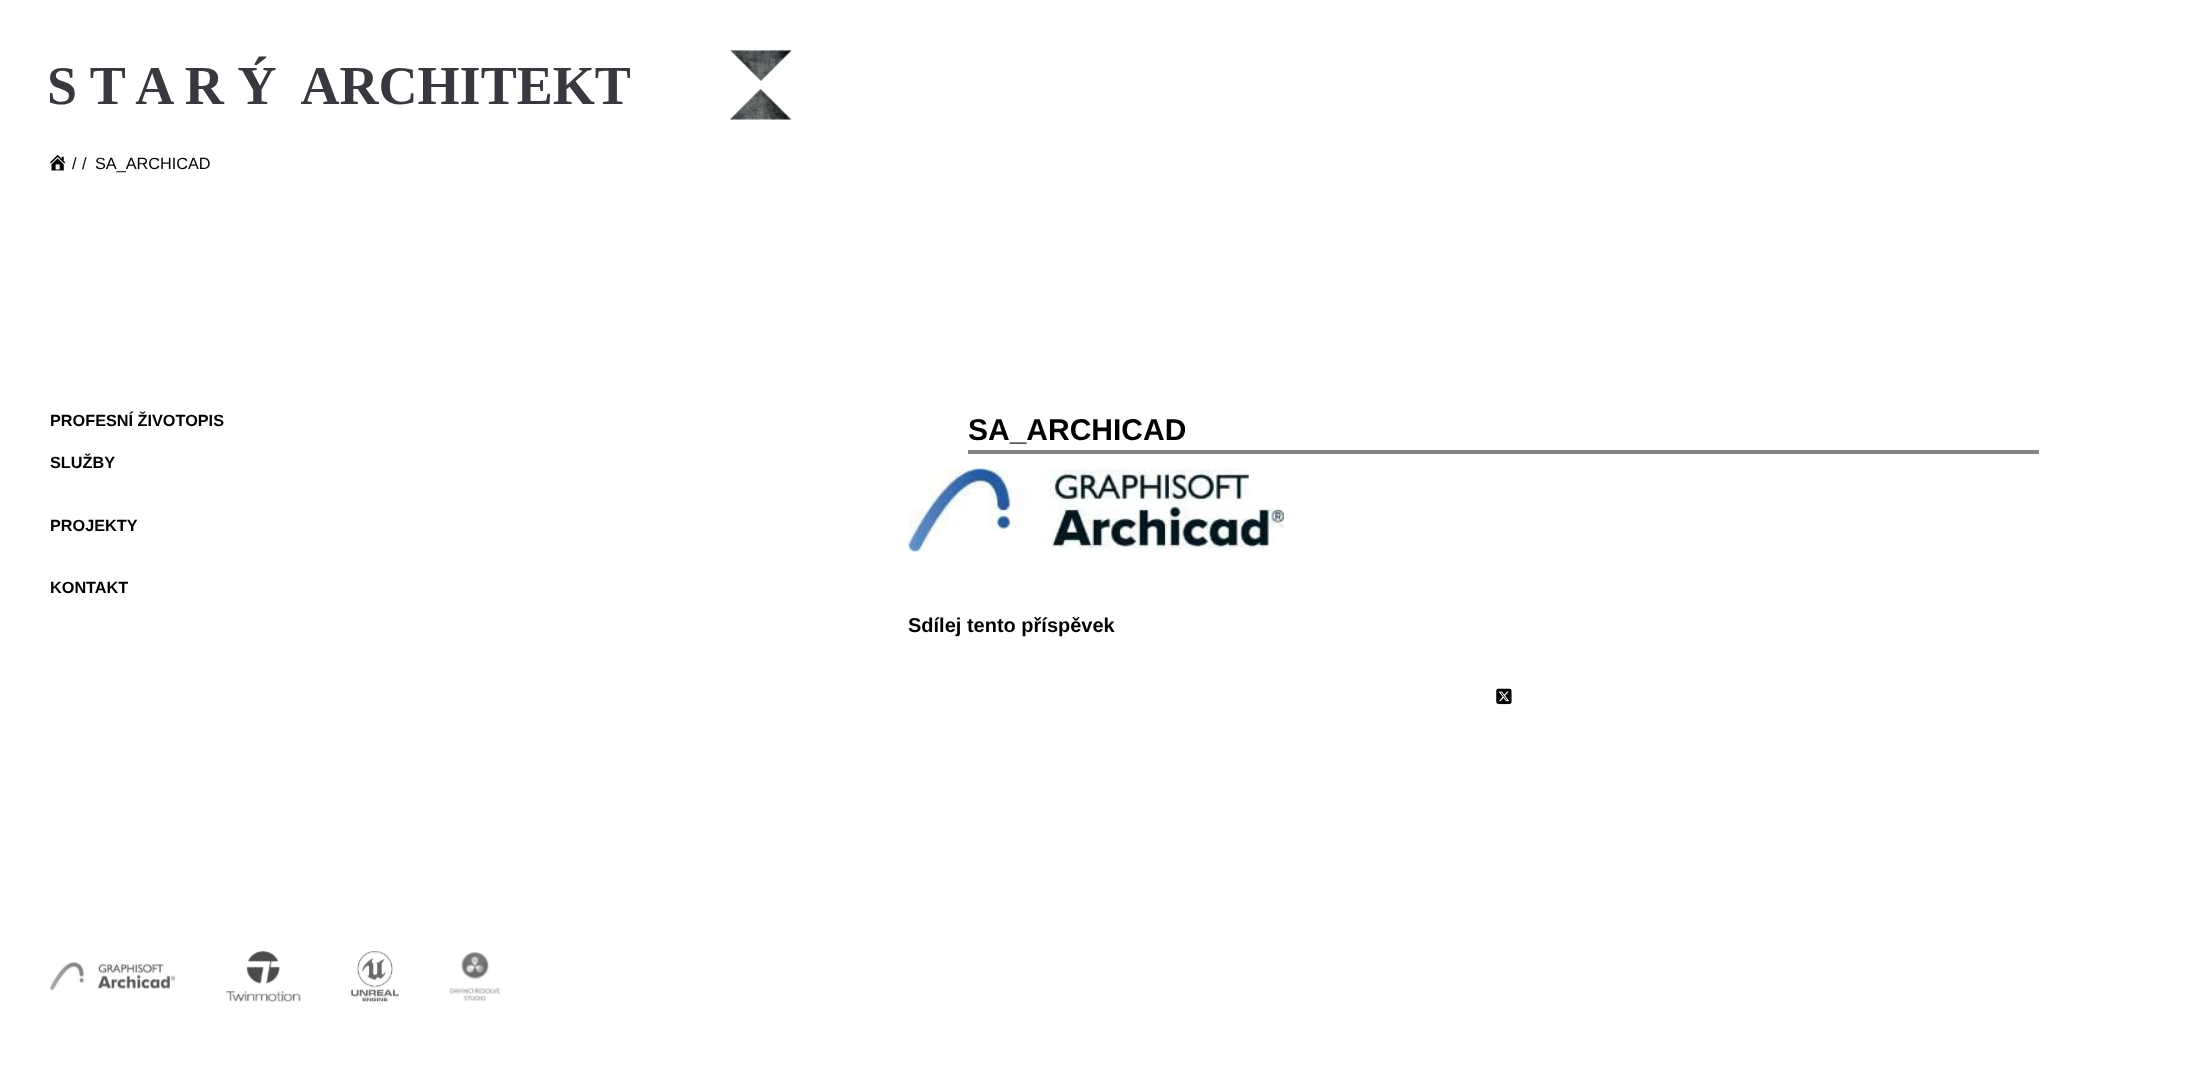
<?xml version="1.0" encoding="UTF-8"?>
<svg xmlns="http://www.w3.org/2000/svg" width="2211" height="1076">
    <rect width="100%" height="100%" fill="#FFFFFF"/>
    <image x="50" y="154" width="16" height="17" href="img_01.png"/>
    <text x="72" y="169" font-family="Liberation Sans" font-size="16.25" fill="#000000">/</text>
    <text x="82" y="169" font-family="Liberation Sans" font-size="16.25" fill="#000000">/</text>
    <text x="95" y="169" font-family="Liberation Sans" font-size="16.25" fill="#000000">SA_ARCHICAD</text>
    <image x="50" y="50" width="742" height="70" href="img_02.png"/>
    <text x="50" y="426" font-family="Liberation Sans" font-size="16.25" font-weight="700" fill="#000000">PROFESNÍ ŽIVOTOPIS</text>
    <text x="50" y="468" font-family="Liberation Sans" font-size="16.25" font-weight="700" fill="#000000">SLUŽBY</text>
    <text x="50" y="531" font-family="Liberation Sans" font-size="16.25" font-weight="700" fill="#000000">PROJEKTY</text>
    <text x="50" y="593" font-family="Liberation Sans" font-size="16.25" font-weight="700" fill="#000000">KONTAKT</text>
    <image x="50" y="962" width="125" height="29" href="img_03.png"/>
    <image x="226" y="951" width="75" height="51" href="img_04.png"/>
    <image x="351" y="951" width="48" height="51" href="img_05.png"/>
    <image x="449" y="951" width="52" height="51" href="img_06.png"/>
    <rect x="968" y="450" width="1071" height="4" fill="#868686"/>
    <text x="968" y="440" font-family="Liberation Sans" font-size="30" font-weight="700" fill="#000000">SA_ARCHICAD</text>
    <image x="908" y="468" width="376" height="84" href="img_07.png"/>
    <text x="908" y="632" font-family="Liberation Sans" font-size="20" font-weight="700" fill="#000000">Sdílej tento příspěvek</text>
    <image x="1496" y="688" width="16" height="17" href="img_08.png"/>
</svg>
